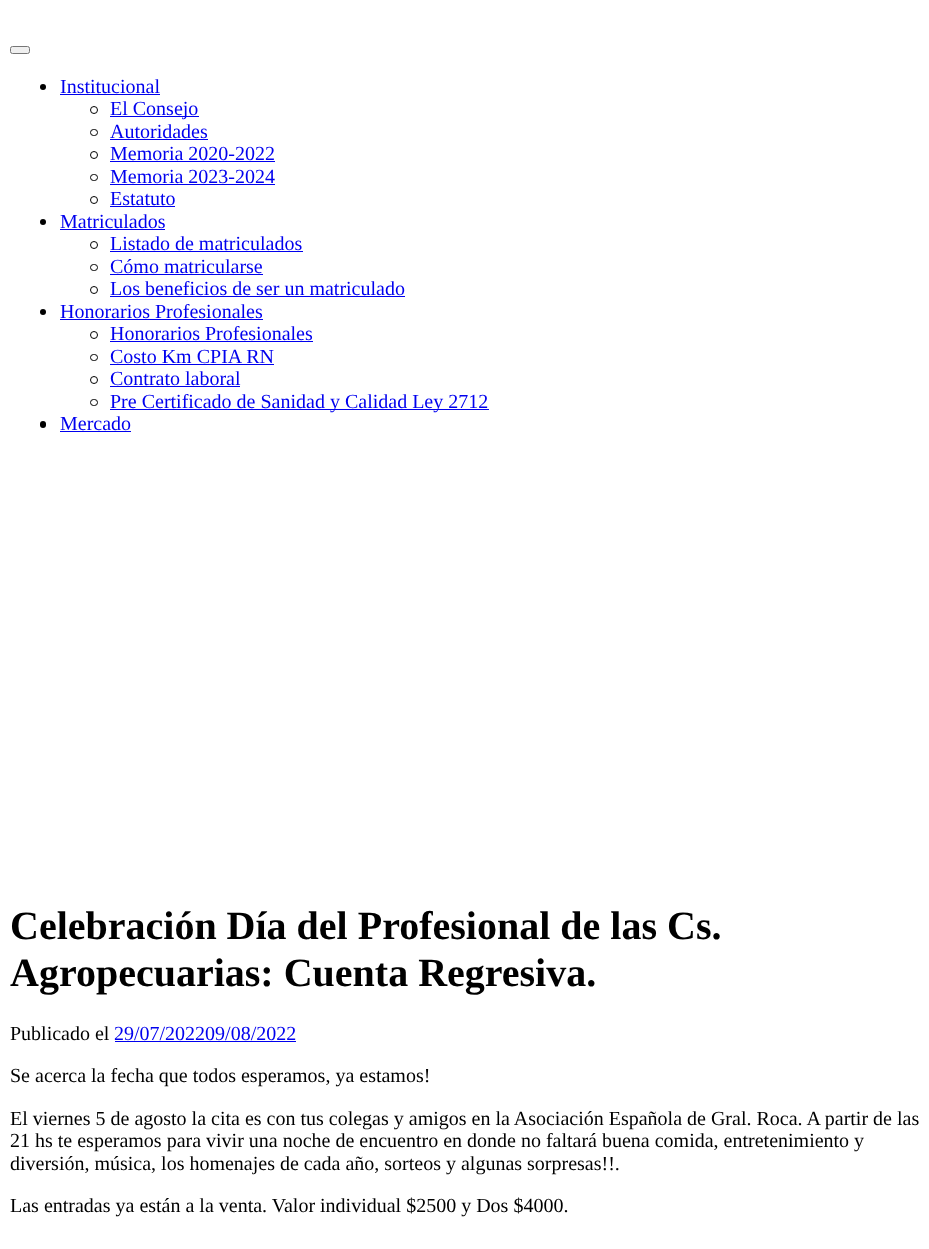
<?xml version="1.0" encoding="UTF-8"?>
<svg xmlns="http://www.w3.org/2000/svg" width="929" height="1249">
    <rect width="100%" height="100%" fill="#FFFFFF"/>
    <rect x="10.5" y="46.5" width="19" height="7" rx="2" fill="#EFEFEF" stroke="#767676"/>
    <circle cx="43" cy="87" r="3" fill="#000000"/>
    <text x="60" y="93" font-family="Liberation Serif" font-size="20" fill="#0000EE">Institucional</text>
    <rect x="60" y="94" width="100" height="1" fill="#0000EE"/>
    <circle cx="94" cy="110" r="3.5" fill="none" stroke="#000000"/>
    <rect x="110" y="116" width="89" height="1" fill="#0000EE"/>
    <text x="110" y="115" font-family="Liberation Serif" font-size="20" fill="#0000EE">El Consejo</text>
    <rect x="90.5" y="129.5" width="7" height="6" rx="3" fill="none" stroke="#000000"/>
    <text x="110" y="138" font-family="Liberation Serif" font-size="20" fill="#0000EE">Autoridades</text>
    <rect x="110" y="139" width="98" height="1" fill="#0000EE"/>
    <circle cx="94" cy="155" r="3.5" fill="none" stroke="#000000"/>
    <text x="110" y="160" font-family="Liberation Serif" font-size="20" fill="#0000EE">Memoria 2020-2022</text>
    <rect x="110" y="161" width="165" height="1" fill="#0000EE"/>
    <rect x="90.5" y="174.5" width="7" height="6" rx="3" fill="none" stroke="#000000"/>
    <text x="110" y="183" font-family="Liberation Serif" font-size="20" fill="#0000EE">Memoria 2023-2024</text>
    <rect x="110" y="184" width="165" height="1" fill="#0000EE"/>
    <circle cx="94" cy="200" r="3.5" fill="none" stroke="#000000"/>
    <text x="110" y="205" font-family="Liberation Serif" font-size="20" fill="#0000EE">Estatuto</text>
    <rect x="110" y="206" width="65" height="1" fill="#0000EE"/>
    <circle cx="43" cy="222" r="3" fill="#000000"/>
    <text x="60" y="228" font-family="Liberation Serif" font-size="20" fill="#0000EE">Matriculados</text>
    <rect x="60" y="229" width="105" height="1" fill="#0000EE"/>
    <circle cx="94" cy="245" r="3.5" fill="none" stroke="#000000"/>
    <text x="110" y="250" font-family="Liberation Serif" font-size="20" fill="#0000EE">Listado de matriculados</text>
    <rect x="110" y="251" width="193" height="1" fill="#0000EE"/>
    <rect x="90.5" y="264.5" width="7" height="6" rx="3" fill="none" stroke="#000000"/>
    <text x="110" y="273" font-family="Liberation Serif" font-size="20" fill="#0000EE">Cómo matricularse</text>
    <rect x="110" y="274" width="153" height="1" fill="#0000EE"/>
    <circle cx="94" cy="290" r="3.5" fill="none" stroke="#000000"/>
    <text x="110" y="295" font-family="Liberation Serif" font-size="20" fill="#0000EE">Los beneficios de ser un matriculado</text>
    <rect x="110" y="296" width="295" height="1" fill="#0000EE"/>
    <circle cx="43" cy="312" r="3" fill="#000000"/>
    <text x="60" y="318" font-family="Liberation Serif" font-size="20" fill="#0000EE">Honorarios Profesionales</text>
    <rect x="60" y="319" width="203" height="1" fill="#0000EE"/>
    <circle cx="94" cy="335" r="3.5" fill="none" stroke="#000000"/>
    <text x="110" y="340" font-family="Liberation Serif" font-size="20" fill="#0000EE">Honorarios Profesionales</text>
    <rect x="110" y="341" width="203" height="1" fill="#0000EE"/>
    <rect x="90.5" y="354.5" width="7" height="6" rx="3" fill="none" stroke="#000000"/>
    <text x="110" y="363" font-family="Liberation Serif" font-size="20" fill="#0000EE">Costo Km CPIA RN</text>
    <rect x="110" y="364" width="164" height="1" fill="#0000EE"/>
    <circle cx="94" cy="380" r="3.5" fill="none" stroke="#000000"/>
    <text x="110" y="385" font-family="Liberation Serif" font-size="20" fill="#0000EE">Contrato laboral</text>
    <rect x="110" y="386" width="130" height="1" fill="#0000EE"/>
    <rect x="90.5" y="399.5" width="7" height="6" rx="3" fill="none" stroke="#000000"/>
    <rect x="110" y="409" width="379" height="1" fill="#0000EE"/>
    <text x="110" y="408" font-family="Liberation Serif" font-size="20" fill="#0000EE">Pre Certificado de Sanidad y Calidad Ley 2712</text>
    <rect x="40" y="421" width="6" height="7" rx="3" fill="#000000"/>
    <text x="60" y="430" font-family="Liberation Serif" font-size="20" fill="#0000EE">Mercado</text>
    <rect x="60" y="431" width="71" height="1" fill="#0000EE"/>
    <text font-family="Liberation Serif" font-size="40" font-weight="700" fill="#000000">
        <tspan x="10" y="939">Celebración Día del Profesional de las Cs.</tspan>
        <tspan x="10" y="986">Agropecuarias: Cuenta Regresiva.</tspan>
    </text>
    <text x="10" y="1040" font-family="Liberation Serif" font-size="20" fill="#000000">Publicado el</text>
    <text x="114" y="1040" font-family="Liberation Serif" font-size="20" fill="#0000EE">29/07/202209/08/2022</text>
    <rect x="115" y="1041" width="181" height="1" fill="#0000EE"/>
    <text x="10" y="1082" font-family="Liberation Serif" font-size="20" fill="#000000">Se acerca la fecha que todos esperamos, ya estamos!</text>
    <text font-family="Liberation Serif" font-size="20" fill="#000000">
        <tspan x="10" y="1125">El viernes 5 de agosto la cita es con tus colegas y amigos en la Asociación Española de Gral. Roca. A partir de las</tspan>
        <tspan x="10" y="1147">21 hs te esperamos para vivir una noche de encuentro en donde no faltará buena comida, entretenimiento y</tspan>
        <tspan x="10" y="1170">diversión, música, los homenajes de cada año, sorteos y algunas sorpresas!!.</tspan>
    </text>
    <text x="10" y="1212" font-family="Liberation Serif" font-size="20" fill="#000000">Las entradas ya están a la venta. Valor individual $2500 y Dos $4000.</text>
</svg>
